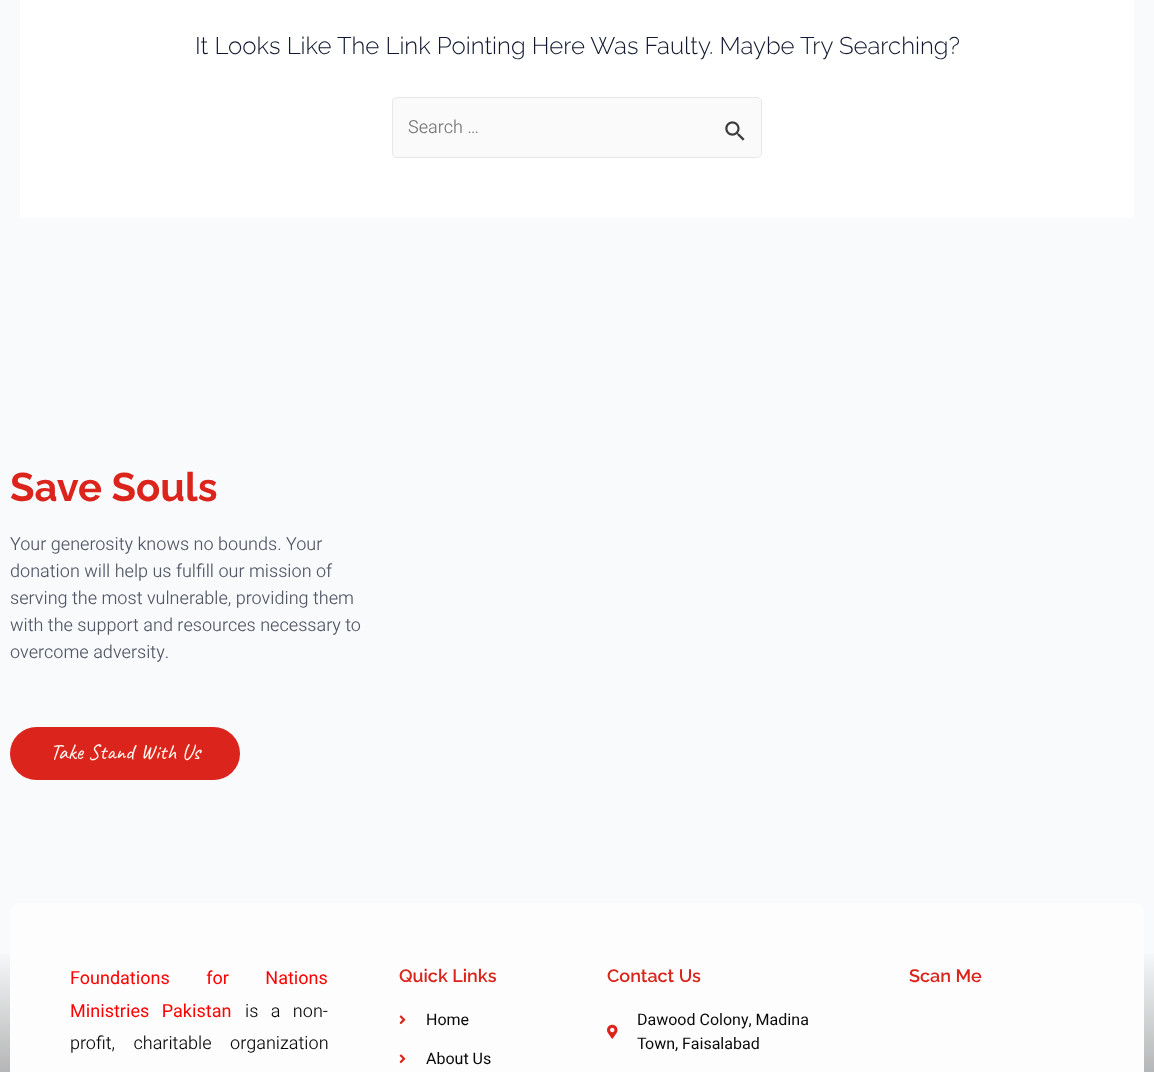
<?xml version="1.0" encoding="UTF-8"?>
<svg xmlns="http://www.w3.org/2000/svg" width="1154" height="1072">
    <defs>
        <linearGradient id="g1" gradientUnits="userSpaceOnUse" x1="577" y1="350" x2="577" y2="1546"><stop offset="0.5" stop-color="#F9FAFB"/><stop offset="0.85" stop-color="#131313"/></linearGradient>
    </defs>
    <rect width="100%" height="100%" fill="#F9FAFB"/>
    <rect x="20" y="0" width="1114" height="218" fill="#FFFFFF"/>
    <text x="195" y="54" font-family="Raleway" font-size="24" font-weight="300" fill="#10172E">It Looks Like The Link Pointing Here Was Faulty. Maybe Try Searching?</text>
    <rect x="392.5" y="97.5" width="369" height="60" rx="4.5" fill="#FAFAFA" stroke="#E7E7E7"/>
    <text x="408" y="133" font-family="Heebo" font-size="18" font-weight="300" fill="#757575">Search …</text>
    <image x="725" y="121" width="20" height="20" href="img_01.png"/>
    <text x="10" y="501" font-family="Raleway" font-size="40" font-weight="700" fill="#DB241C">Save Souls</text>
    <text font-family="Heebo" font-size="18" font-weight="300" fill="#525766">
        <tspan x="10" y="550">Your generosity knows no bounds. Your</tspan>
        <tspan x="10" y="577">donation will help us fulfill our mission of</tspan>
        <tspan x="10" y="604">serving the most vulnerable, providing them</tspan>
        <tspan x="10" y="631">with the support and resources necessary to</tspan>
        <tspan x="10" y="658">overcome adversity.</tspan>
    </text>
    <rect x="10" y="727" width="230" height="53" rx="26.5" fill="#DB241C"/>
    <text x="50" y="759" font-family="Caveat" font-size="22" fill="#FFFBF3">Take Stand With Us</text>
    <rect x="0" y="953" width="1154" height="119" fill="url(#g1)"/>
    <rect x="10" y="903" width="1134" height="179" rx="10" fill="#FDFDFD"/>
    <text font-family="Heebo" font-size="18" fill="#FF0000">
        <tspan x="70" y="984" word-spacing="32">Foundations for Nations</tspan>
        <tspan x="70" y="1017" word-spacing="8">Ministries Pakistan</tspan>
    </text>
    <text x="245" y="1017" word-spacing="8" font-family="Heebo" font-size="18" font-weight="300" fill="#090909">is a non-</text>
    <text x="70" y="1049" word-spacing="14" font-family="Heebo" font-size="18" font-weight="300" fill="#090909">profit, charitable organization</text>
    <text x="399" y="982" font-family="Raleway" font-size="18" font-weight="600" fill="#DB241C">Quick Links</text>
    <image x="399" y="1015" width="7" height="10" href="img_02.png"/>
    <text x="426" y="1025" font-family="Heebo" font-size="16" fill="#090909">Home</text>
    <image x="399" y="1054" width="7" height="10" href="img_02.png"/>
    <text x="426" y="1064" font-family="Heebo" font-size="16" fill="#090909">About Us</text>
    <text x="607" y="982" font-family="Raleway" font-size="18" font-weight="600" fill="#DB241C">Contact Us</text>
    <image x="607" y="1024" width="11" height="15" href="img_03.png"/>
    <text font-family="Heebo" font-size="16" fill="#090909">
        <tspan x="637" y="1025">Dawood Colony, Madina</tspan>
        <tspan x="637" y="1049">Town, Faisalabad</tspan>
    </text>
    <text x="909" y="982" font-family="Raleway" font-size="18" font-weight="600" fill="#DB241C">Scan Me</text>
</svg>
